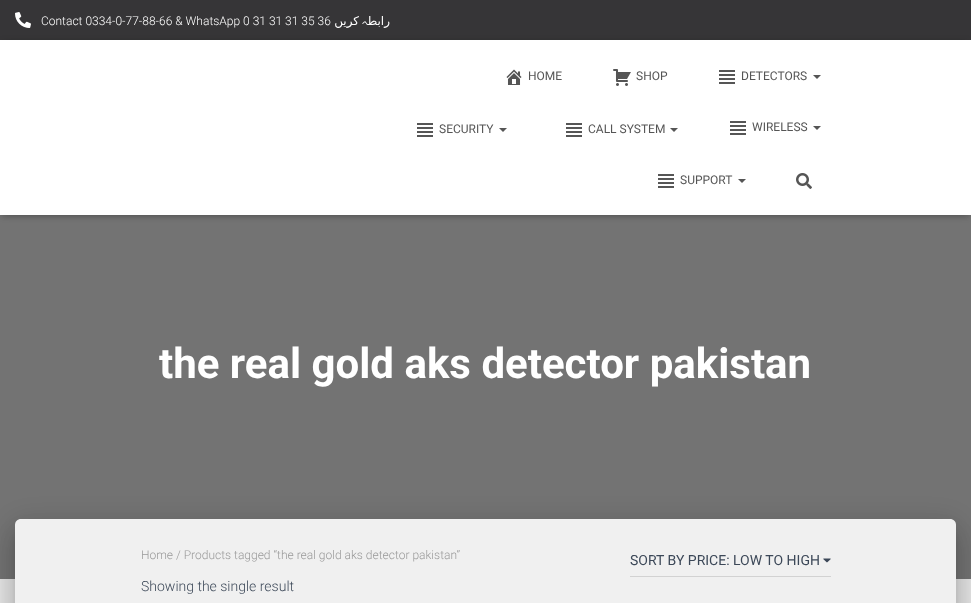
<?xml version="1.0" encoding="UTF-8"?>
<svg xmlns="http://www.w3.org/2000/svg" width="971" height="603">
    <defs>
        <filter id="blur1" x="-50%" y="-200%" width="200%" height="500%"><feGaussianBlur stdDeviation="2.5"/></filter>
        <filter id="blur2" x="-50%" y="-200%" width="200%" height="500%"><feGaussianBlur stdDeviation="5"/></filter>
        <filter id="blur3" x="-50%" y="-200%" width="200%" height="500%"><feGaussianBlur stdDeviation="15"/></filter>
        <filter id="blur4" x="-50%" y="-200%" width="200%" height="500%"><feGaussianBlur stdDeviation="12"/></filter>
    </defs>
    <rect width="100%" height="100%" fill="#E5E5E5"/>
    <rect x="0" y="215" width="971" height="364" fill="#737373"/>
    <rect x="0" y="0" width="971" height="40" fill="#363537"/>
    <image x="15" y="12" width="16" height="16" href="img_01.png"/>
    <text x="41" y="25" font-family="Roboto" font-size="12" font-weight="300" fill="#FFFFFF">Contact 0334-0-77-88-66 &amp; WhatsApp 0 31 31 31 35 36</text>
    <text x="359" y="25" font-family="DejaVu Sans" font-size="12" direction="rtl" fill="#FFFFFF">کریں</text>
    <text x="368" y="25" font-family="Cascadia Code" font-size="12" font-weight="300" direction="rtl" fill="#FFFFFF">‍ہ</text>
    <text x="390" y="25" font-family="DejaVu Sans" font-size="12" direction="rtl" fill="#FFFFFF">رابط‍</text>
    <rect x="2" y="46" width="967" height="171" fill="#000000" fill-opacity="0.1" filter="url(#blur1)"/>
    <rect x="0" y="41" width="971" height="175" fill="#000000" fill-opacity="0.12" filter="url(#blur2)"/>
    <rect x="6" y="47" width="959" height="163" fill="#000000" fill-opacity="0.42" filter="url(#blur2)"/>
    <rect x="0" y="40" width="971" height="175" fill="#FFFFFF"/>
    <image x="506" y="69" width="16" height="16" href="img_02.png"/>
    <text x="528" y="80" font-family="Roboto" font-size="12" fill="#555555">HOME</text>
    <image x="613" y="69" width="18" height="17" href="img_03.png"/>
    <text x="636" y="80" font-family="Roboto" font-size="12" fill="#555555">SHOP</text>
    <image x="719" y="70" width="16" height="14" href="img_04.png"/>
    <text x="741" y="80" font-family="Roboto" font-size="12" fill="#555555">DETECTORS</text>
    <path d="M 813 75 H 821 L 817 79 Z" fill="#555555"/>
    <image x="417" y="123" width="16" height="14" href="img_04.png"/>
    <text x="439" y="133" font-family="Roboto" font-size="12" fill="#555555">SECURITY</text>
    <path d="M 499 128 H 507 L 503 132 Z" fill="#555555"/>
    <image x="566" y="123" width="16" height="14" href="img_04.png"/>
    <text x="588" y="133" font-family="Roboto" font-size="12" fill="#555555">CALL SYSTEM</text>
    <path d="M 670 128 H 678 L 674 132 Z" fill="#555555"/>
    <image x="730" y="121" width="16" height="14" href="img_04.png"/>
    <text x="752" y="131" font-family="Roboto" font-size="12" fill="#555555">WIRELESS</text>
    <path d="M 813 126 H 821 L 817 130 Z" fill="#555555"/>
    <image x="658" y="174" width="16" height="14" href="img_04.png"/>
    <text x="680" y="184" font-family="Roboto" font-size="12" fill="#555555">SUPPORT</text>
    <path d="M 738 179 H 746 L 742 183 Z" fill="#555555"/>
    <image x="796" y="173" width="16" height="16" href="img_05.png"/>
    <text x="159" y="378" font-family="Roboto" font-size="42" font-weight="700" fill="#FFFFFF">the real gold aks detector pakistan</text>
    <rect x="20" y="532" width="931" height="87" rx="1" fill="#000000" fill-opacity="0.2" filter="url(#blur2)"/>
    <rect x="10" y="520" width="951" height="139" rx="11" fill="#000000" fill-opacity="0.12" filter="url(#blur3)"/>
    <rect x="13" y="533" width="945" height="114" rx="8" fill="#000000" fill-opacity="0.14" filter="url(#blur4)"/>
    <path d="M 21 519 H 950 C 953.5 519 956 521.5 956 525 V 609 H 15 V 525 C 15 521.5 17.5 519 21 519 Z" fill="#F0F0F0"/>
    <text x="141" y="559" font-family="Roboto" font-size="12" font-weight="300" fill="#999999">Home / Products tagged “the real gold aks detector pakistan”</text>
    <text x="141" y="591" font-family="Roboto" font-size="14" font-weight="300" fill="#3C4858">Showing the single result</text>
    <rect x="630" y="576" width="201" height="1" fill="#D2D2D2"/>
    <text x="630" y="565" font-family="Roboto" font-size="14" fill="#3C4858">SORT BY PRICE: LOW TO HIGH</text>
    <image x="823" y="558" width="8" height="5" href="img_06.png"/>
</svg>
